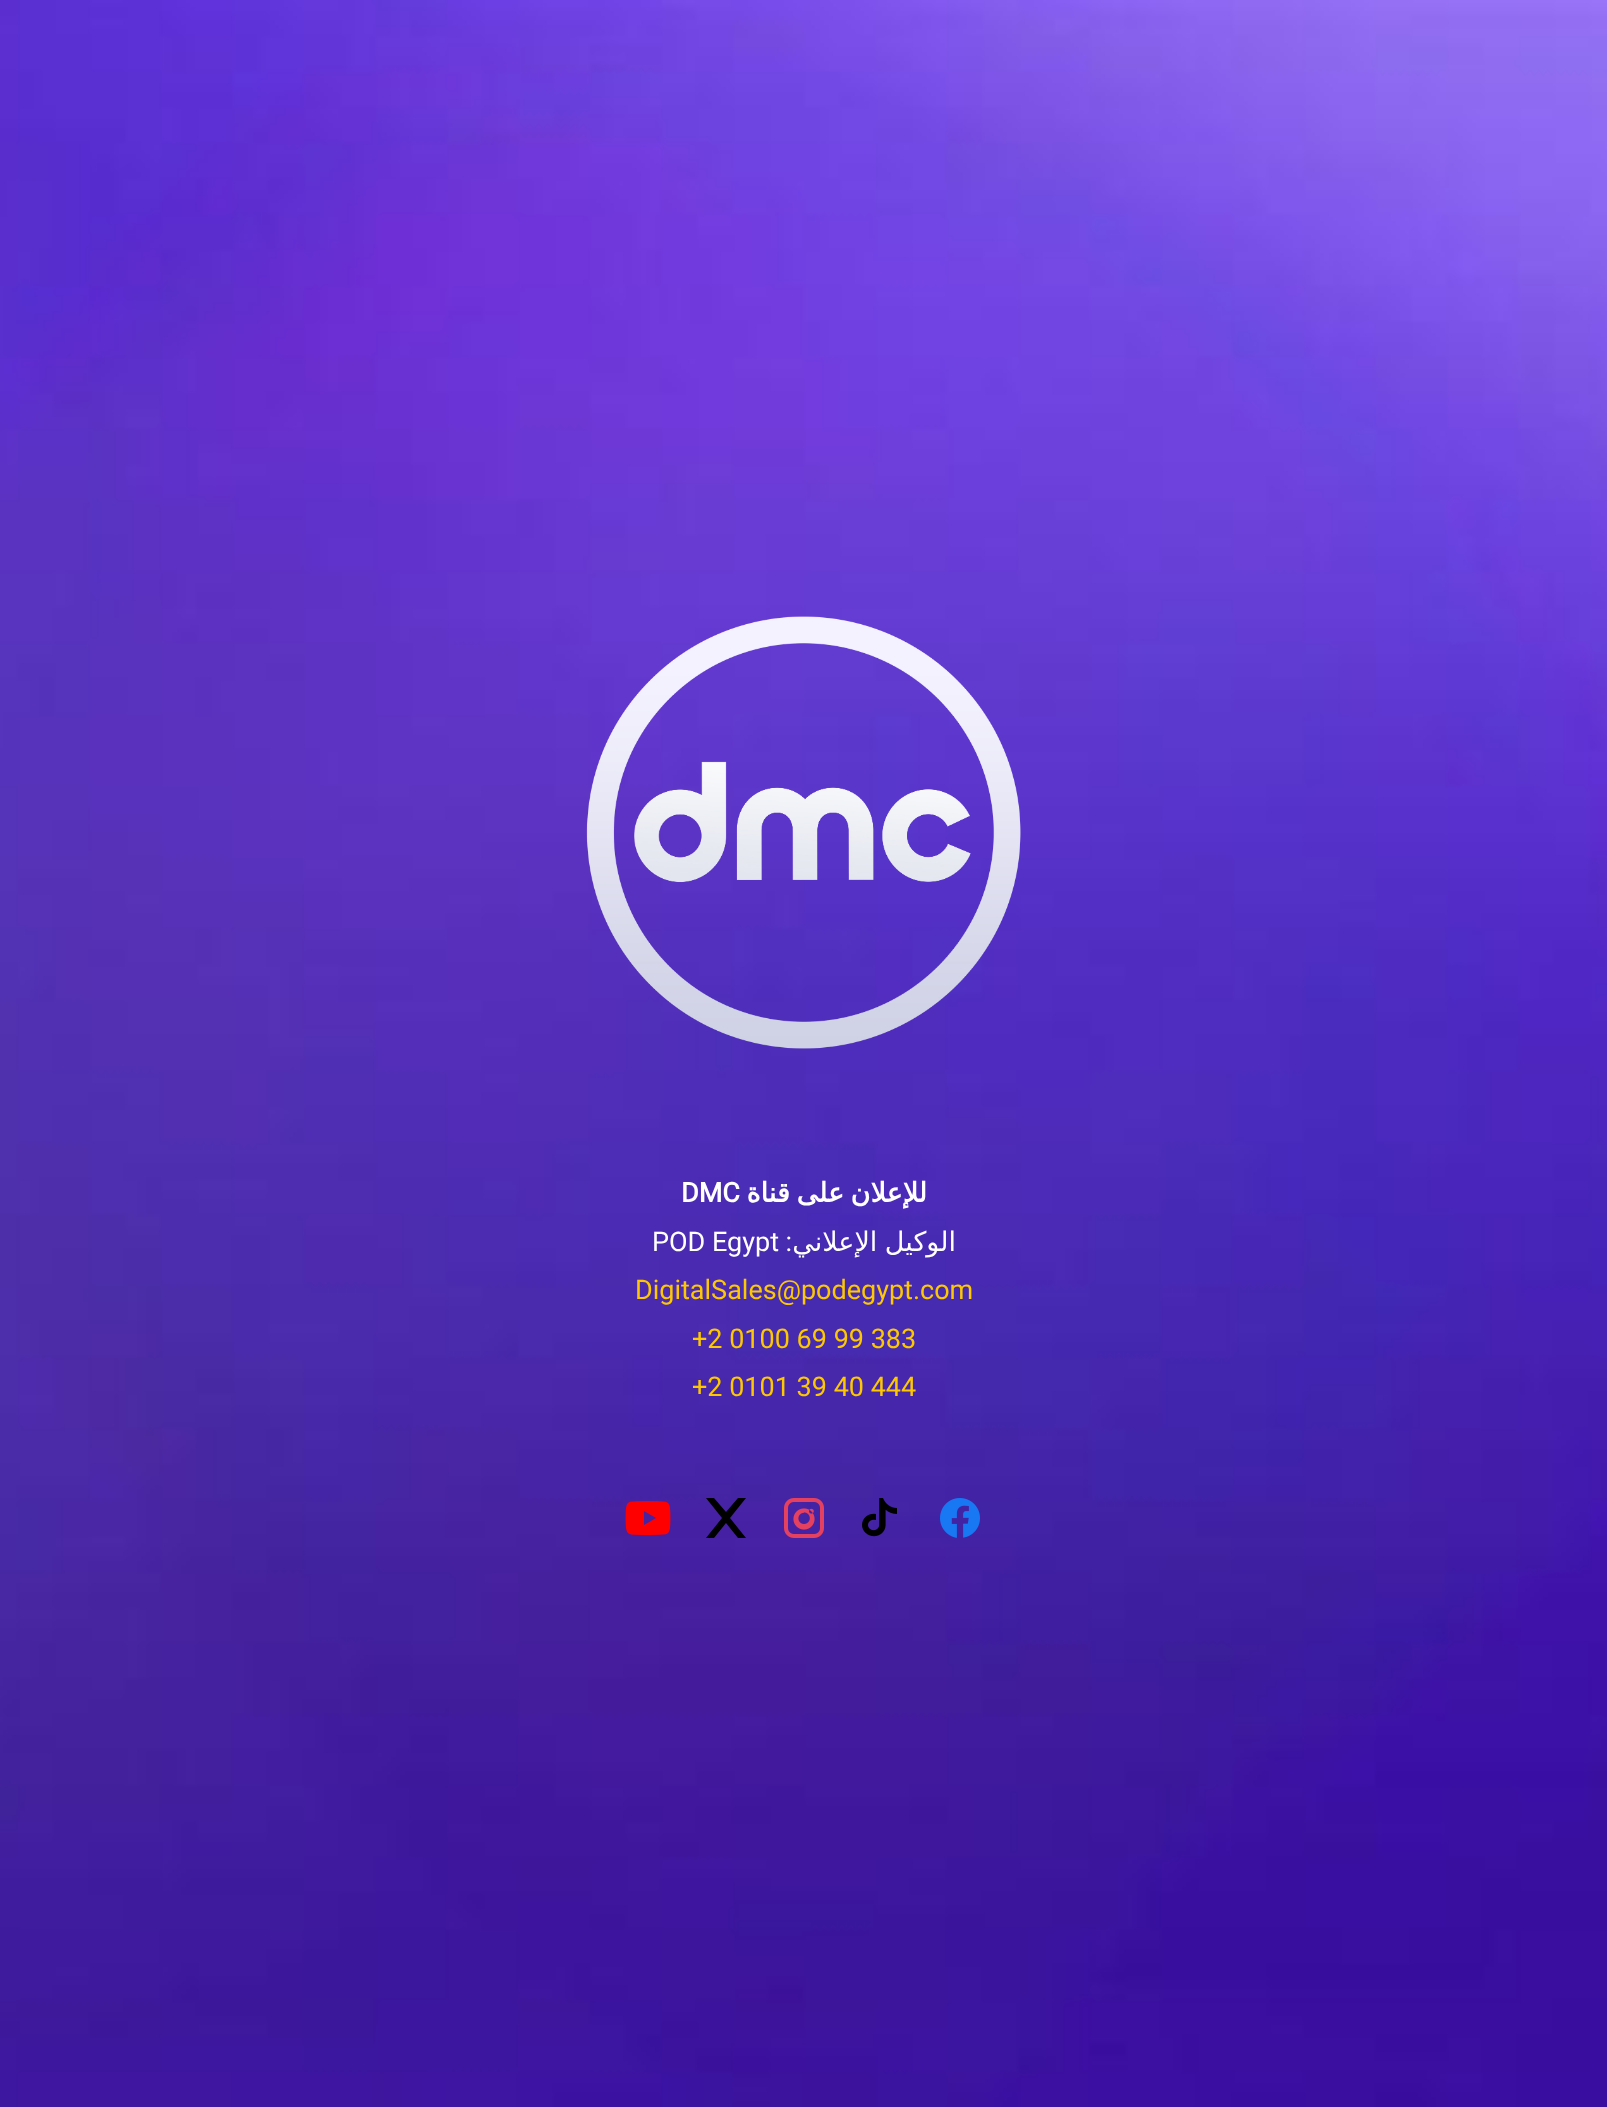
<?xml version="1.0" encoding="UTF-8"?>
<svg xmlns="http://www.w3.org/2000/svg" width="1607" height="2107">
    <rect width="100%" height="100%" fill="#FFFFFF"/>
    <image x="0" y="0" width="1607" height="2107" href="img_01.png"/>
    <image x="586" y="616" width="435" height="433" href="img_02.png"/>
    <text x="681" y="1202" font-family="Roboto" font-size="27" font-weight="700" fill="#FFFFFF">DMC</text>
    <text x="927" y="1202" word-spacing="-2" font-family="DejaVu Sans" font-size="27" font-weight="700" direction="rtl" fill="#FFFFFF">للإعلان على قناة</text>
    <text x="652" y="1251" font-family="Roboto" font-size="27" fill="#FFFFFF">POD Egypt</text>
    <text x="792" y="1251" font-family="Roboto" font-size="27" direction="rtl" fill="#FFFFFF">:</text>
    <text x="956" y="1251" word-spacing="-1" font-family="DejaVu Sans" font-size="27" direction="rtl" fill="#FFFFFF">الوكيل الإعلاني</text>
    <text x="635" y="1299" font-family="Roboto" font-size="27" fill="#FDC802">DigitalSales@podegypt.com</text>
    <text font-family="Roboto" font-size="27" fill="#FDC802">
        <tspan x="692" y="1348">+2 0100 69 99 383</tspan>
        <tspan x="692" y="1396">+2 0101 39 40 444</tspan>
    </text>
    <image x="625" y="1501" width="46" height="34" href="img_03.png"/>
    <path d="M 738 1498 L 726 1512 L 714 1498 H 706 L 722 1518 L 706 1538 H 714 L 726 1523 L 738 1538 H 746 L 730 1518 L 746 1498 Z" fill="#000000"/>
    <image x="784" y="1498" width="40" height="40" href="img_04.png"/>
    <image x="862" y="1498" width="35" height="39" href="img_05.png"/>
    <image x="940" y="1498" width="40" height="40" href="img_06.png"/>
</svg>
